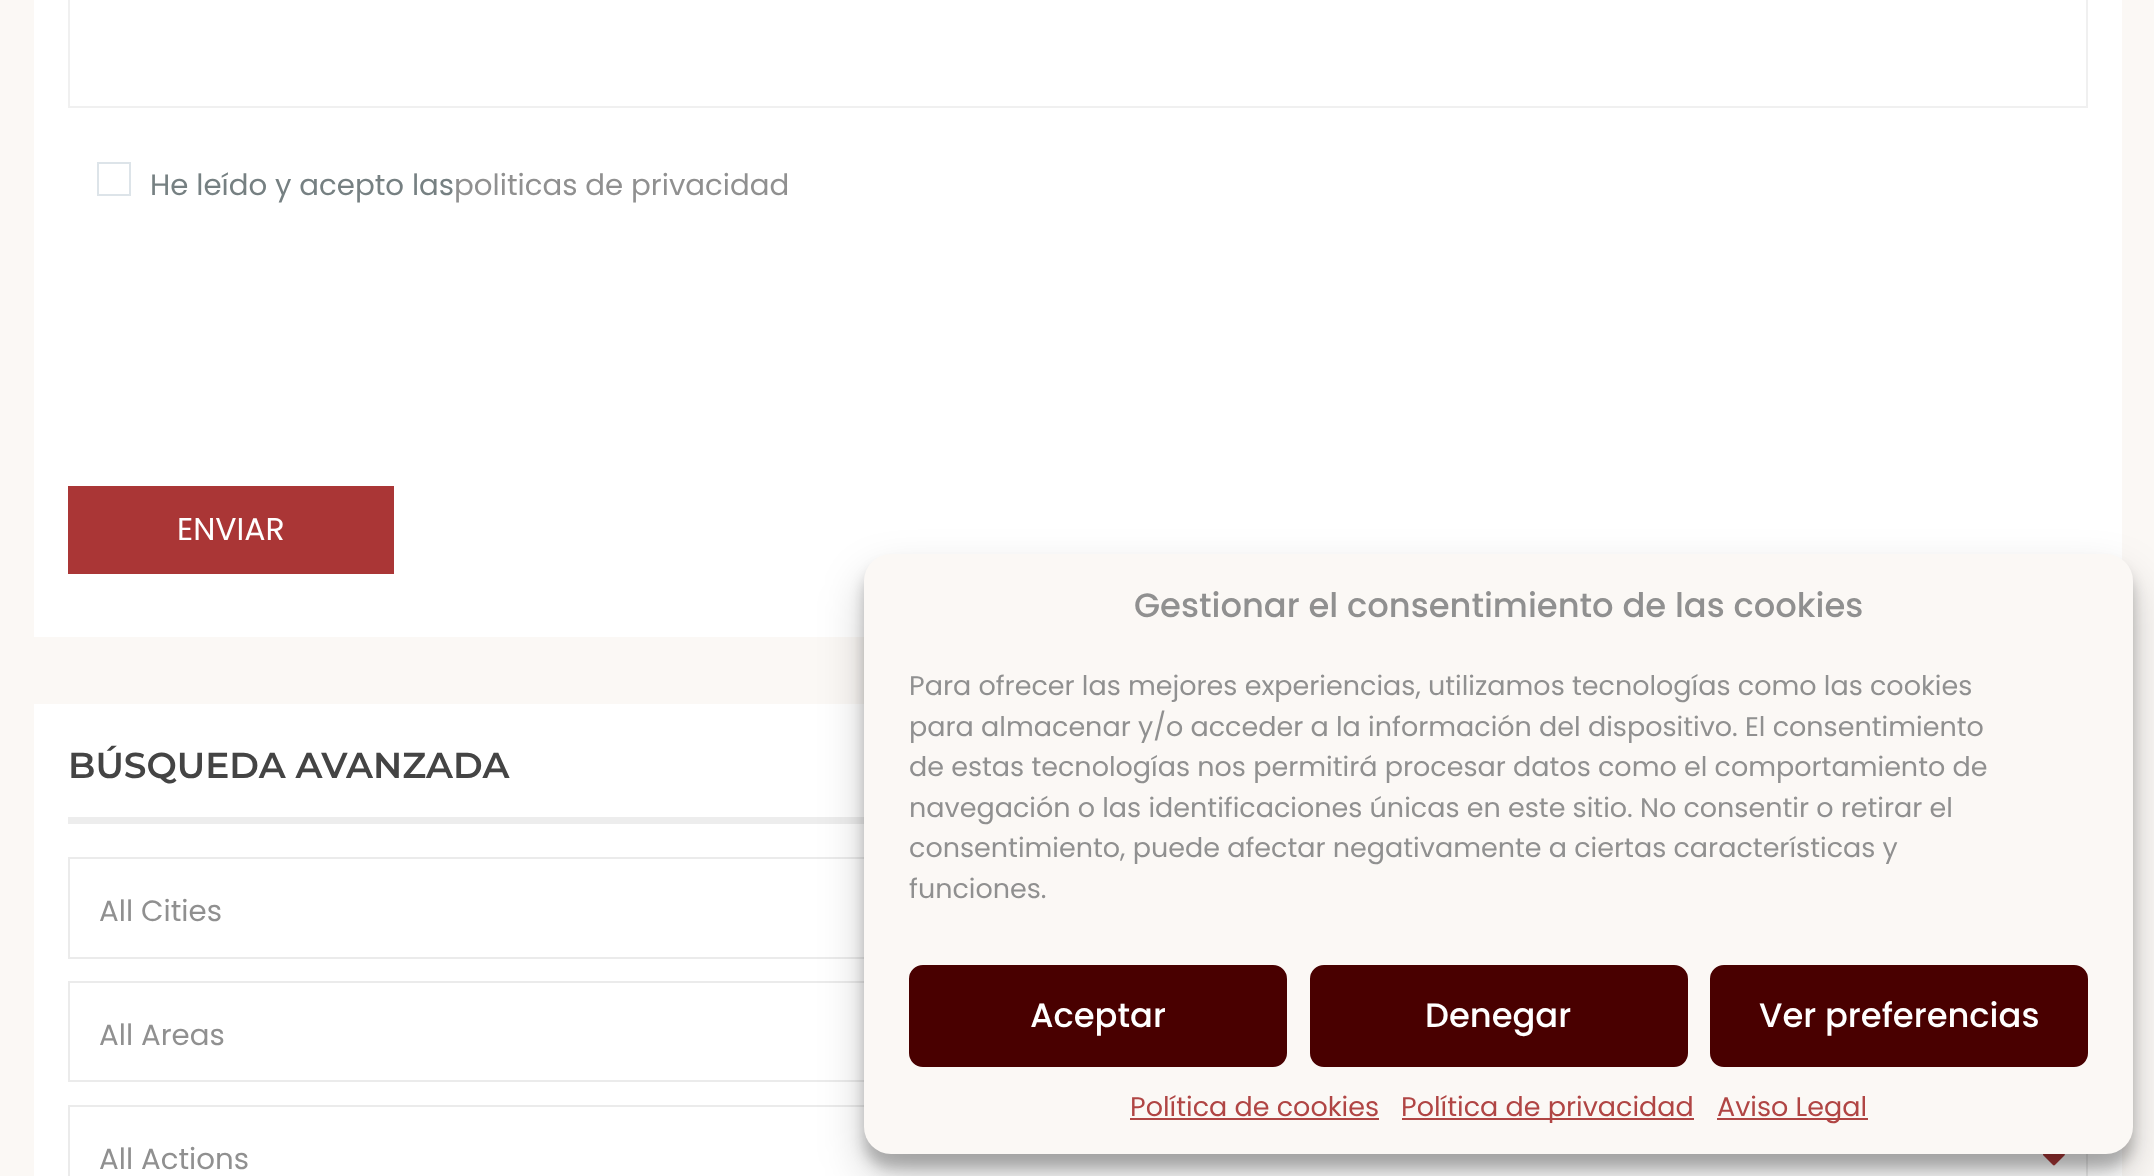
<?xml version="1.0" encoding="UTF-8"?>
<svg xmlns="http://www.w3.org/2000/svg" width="2154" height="1176">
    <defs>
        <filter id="blur1" x="-50%" y="-200%" width="200%" height="500%"><feGaussianBlur stdDeviation="7"/></filter>
        <filter id="blur2" x="-50%" y="-200%" width="200%" height="500%"><feGaussianBlur stdDeviation="22.5"/></filter>
    </defs>
    <rect width="100%" height="100%" fill="#FBF8F5"/>
    <rect x="34" y="0" width="2088" height="637" fill="#FFFFFF"/>
    <rect x="69" y="-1" width="2018" height="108" fill="none" stroke="#F0F0F0" stroke-width="2"/>
    <rect x="98" y="163" width="32" height="32" fill="none" stroke="#DDE4E9" stroke-width="2"/>
    <text x="150" y="195" font-family="Poppins" font-size="29.25" fill="#768082">He leído y acepto las</text>
    <text x="454" y="195" font-family="Poppins" font-size="29.25" fill="#909090">politicas de privacidad</text>
    <rect x="68" y="486" width="326" height="88" fill="#AA3636"/>
    <text x="177" y="540" font-family="Poppins" font-size="31.5" fill="#FFFFFF">ENVIAR</text>
    <rect x="34" y="704" width="2088" height="472" fill="#FFFFFF"/>
    <text x="68" y="778" font-family="Montserrat" font-size="36" font-weight="600" fill="#444444">BÚSQUEDA AVANZADA</text>
    <rect x="68" y="817" width="796" height="7" fill="#EDEDED"/>
    <rect x="69" y="858" width="2018" height="100" fill="none" stroke="#EBEBEB" stroke-width="2"/>
    <text x="99" y="921" font-family="Poppins" font-size="29.25" fill="#909090">All Cities</text>
    <rect x="69" y="982" width="2018" height="99" fill="none" stroke="#EBEBEB" stroke-width="2"/>
    <text x="99" y="1045" font-family="Poppins" font-size="29.25" fill="#909090">All Areas</text>
    <rect x="69" y="1106" width="2018" height="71" fill="none" stroke="#EBEBEB" stroke-width="2"/>
    <text x="99" y="1169" font-family="Poppins" font-size="29.25" fill="#909090">All Actions</text>
    <image x="2043" y="1154" width="22" height="12" href="img_01.png"/>
    <rect x="864" y="567" width="1269" height="601" rx="27" fill="#000000" fill-opacity="0.23" filter="url(#blur1)"/>
    <rect x="864" y="576" width="1269" height="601" rx="27" fill="#000000" fill-opacity="0.19" filter="url(#blur2)"/>
    <rect x="864" y="554" width="1269" height="600" rx="27" fill="#FBF8F5"/>
    <text x="1134" y="617" font-family="Poppins" font-size="33.75" font-weight="500" fill="#909090">Gestionar el consentimiento de las cookies</text>
    <text font-family="Poppins" font-size="27" fill="#909090">
        <tspan x="909" y="695">Para ofrecer las mejores experiencias, utilizamos tecnologías como las cookies</tspan>
        <tspan x="909" y="736">para almacenar y/o acceder a la información del dispositivo. El consentimiento</tspan>
        <tspan x="909" y="776">de estas tecnologías nos permitirá procesar datos como el comportamiento de</tspan>
        <tspan x="909" y="817">navegación o las identificaciones únicas en este sitio. No consentir o retirar el</tspan>
        <tspan x="909" y="857">consentimiento, puede afectar negativamente a ciertas características y</tspan>
        <tspan x="909" y="898">funciones.</tspan>
    </text>
    <rect x="910" y="966" width="376" height="100" rx="13" fill="#490000" stroke="#490000" stroke-width="2"/>
    <text x="1030" y="1027" font-family="Poppins" font-size="33.75" font-weight="500" fill="#FFFFFF">Aceptar</text>
    <rect x="1311" y="966" width="376" height="100" rx="13" fill="#490000" stroke="#490000" stroke-width="2"/>
    <text x="1425" y="1027" font-family="Poppins" font-size="33.75" font-weight="500" fill="#FFFFFF">Denegar</text>
    <rect x="1711" y="966" width="376" height="100" rx="13" fill="#490000" stroke="#490000" stroke-width="2"/>
    <text x="1759" y="1027" font-family="Poppins" font-size="33.75" font-weight="500" fill="#FFFFFF">Ver preferencias</text>
    <text x="1130" y="1116" font-family="Poppins" font-size="27" fill="#B04544">Política de cookies</text>
    <rect x="1130" y="1118" width="249" height="2" fill="#B04544"/>
    <rect x="1402" y="1118" width="292" height="2" fill="#B04544"/>
    <text x="1401" y="1116" font-family="Poppins" font-size="27" fill="#B04544">Política de privacidad</text>
    <rect x="1717" y="1118" width="151" height="2" fill="#B04544"/>
    <text x="1717" y="1116" font-family="Poppins" font-size="27" fill="#B04544">Aviso Legal</text>
</svg>
